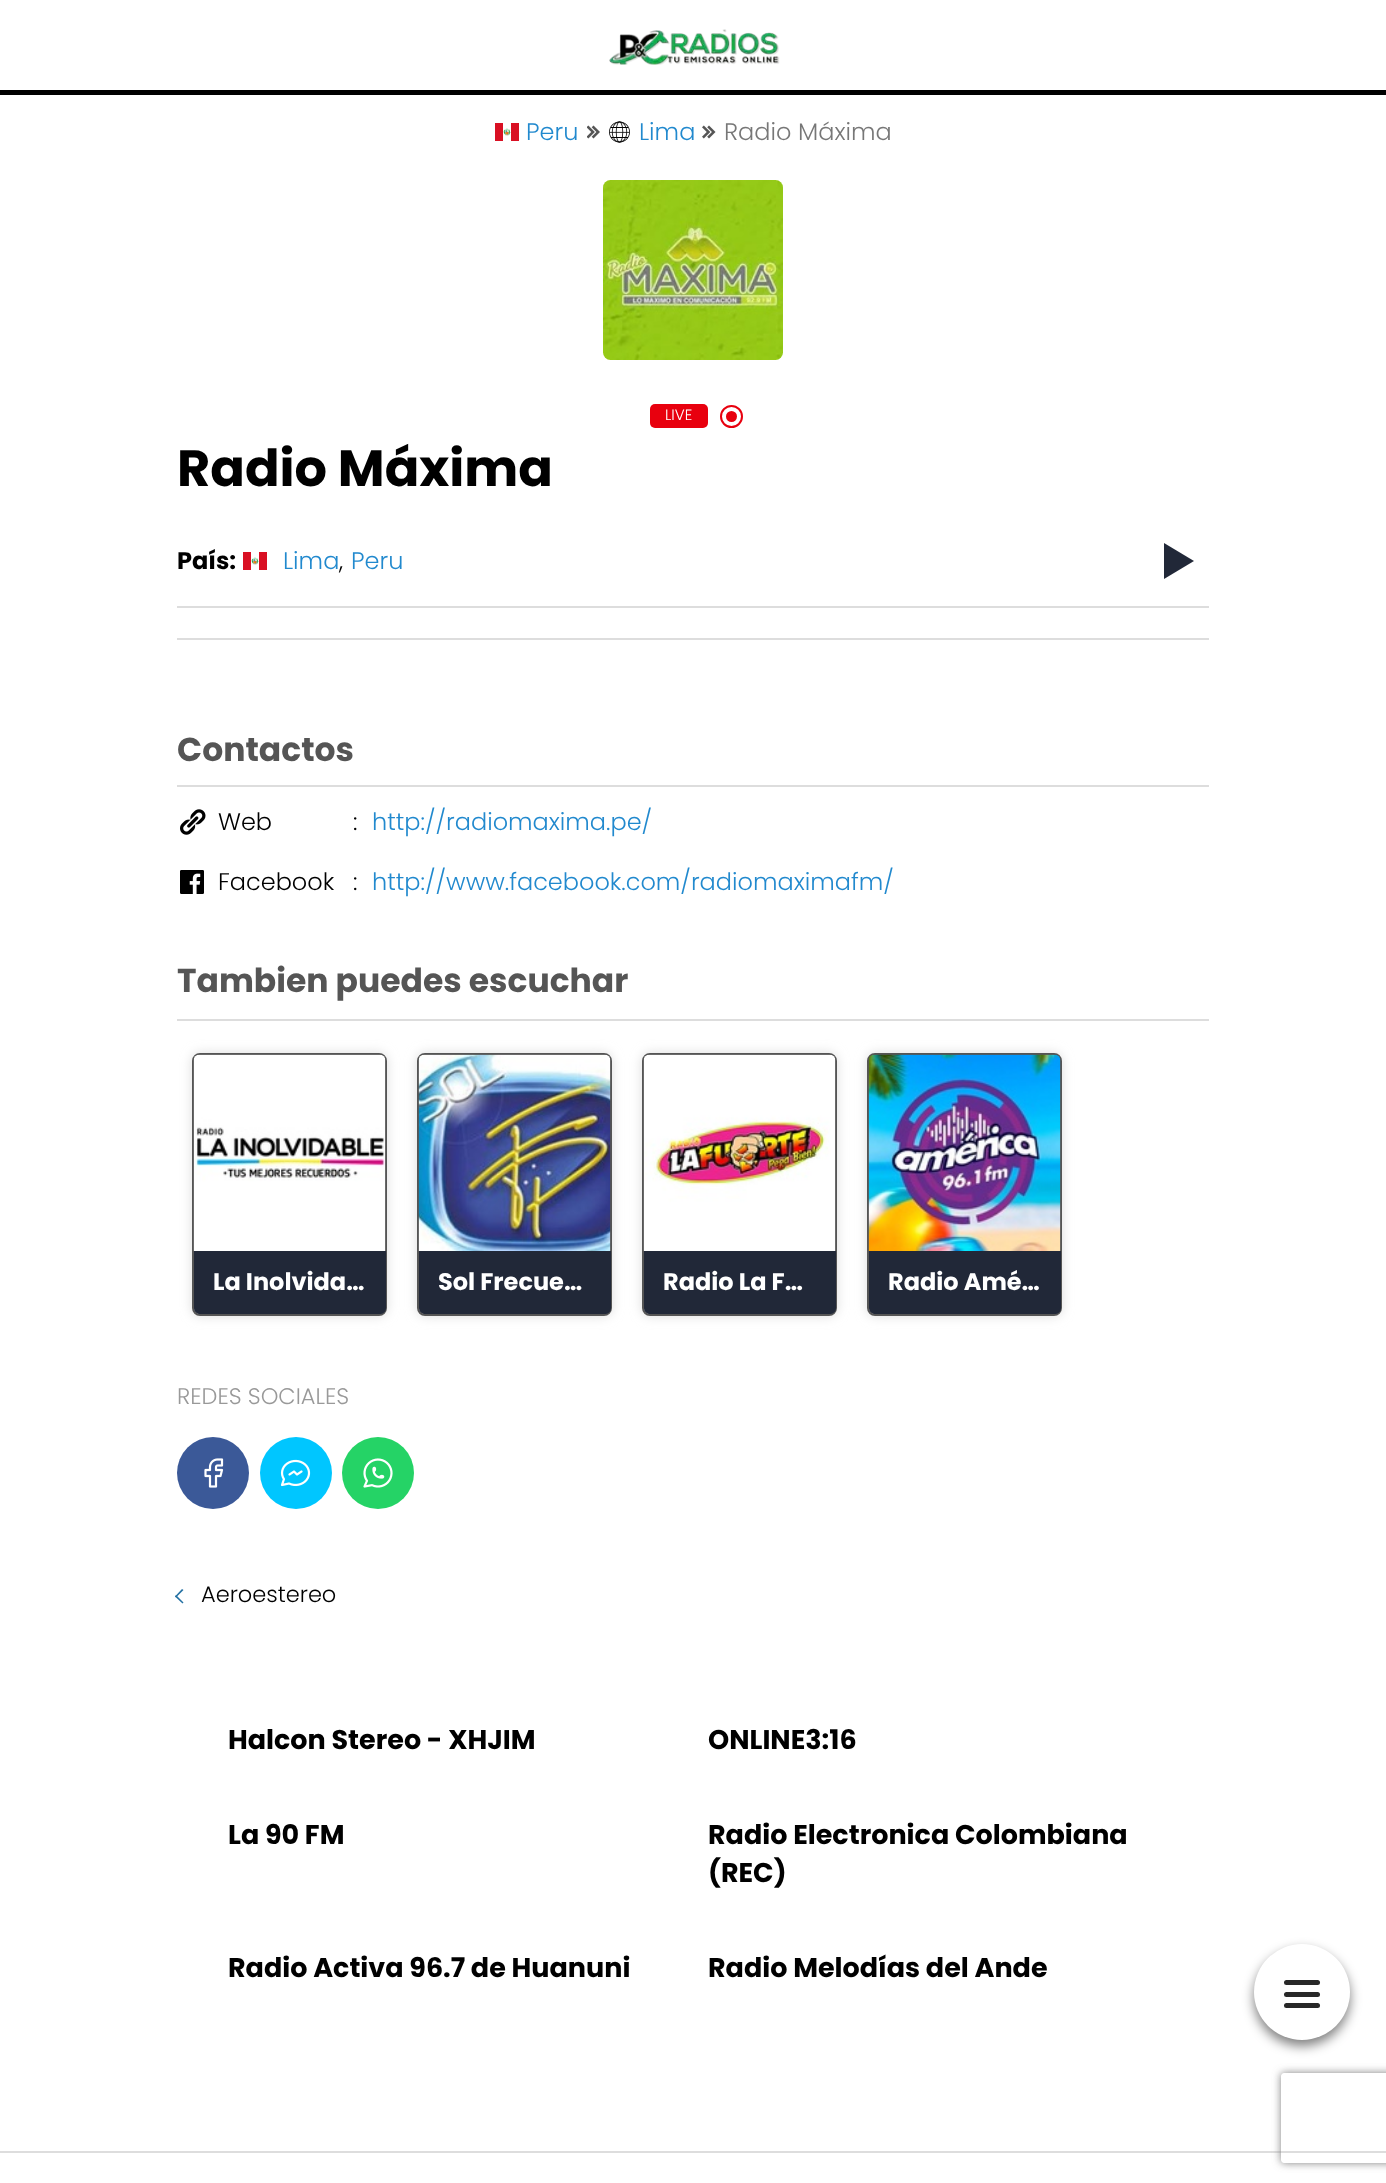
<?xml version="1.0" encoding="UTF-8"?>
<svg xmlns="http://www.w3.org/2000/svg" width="1386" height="2183">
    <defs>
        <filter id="blur1" x="-50%" y="-200%" width="200%" height="500%"><feGaussianBlur stdDeviation="6"/></filter>
        <clipPath id="clip1"><path d="M 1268 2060 H 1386 V 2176 H 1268 Z M 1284 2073 H 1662 C 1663.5 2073 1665 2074.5 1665 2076 V 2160 C 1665 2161.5 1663.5 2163 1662 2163 H 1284 C 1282.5 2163 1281 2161.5 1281 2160 V 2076 C 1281 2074.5 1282.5 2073 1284 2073 Z" clip-rule="evenodd"/></clipPath>
        <filter id="blur2" x="-50%" y="-200%" width="200%" height="500%"><feGaussianBlur stdDeviation="4"/></filter>
    </defs>
    <rect width="100%" height="100%" fill="#FFFFFF"/>
    <rect x="0" y="90" width="1386" height="5" fill="#000000"/>
    <image x="609" y="29" width="171" height="36" href="img_01.png"/>
    <rect x="1254" y="1950" width="96" height="96" rx="48" fill="#000000" fill-opacity="0.5" filter="url(#blur1)"/>
    <circle cx="1302" cy="1992" r="48" fill="#FFFFFF"/>
    <rect x="1284" y="1980" width="36" height="5" rx="2.5" fill="#282828"/>
    <rect x="1284" y="1992" width="36" height="5" rx="2.5" fill="#282828"/>
    <rect x="1284" y="2003" width="36" height="5" rx="2.5" fill="#282828"/>
    <image x="495" y="123" width="24" height="18" href="img_02.png"/>
    <text x="526" y="140" font-family="Poppins" font-size="24" font-weight="300" fill="#2189CE">Peru</text>
    <image x="587" y="125" width="13" height="14" href="img_03.png"/>
    <image x="609" y="121" width="21" height="22" href="img_04.png"/>
    <text x="639" y="140" font-family="Poppins" font-size="24" font-weight="300" fill="#2189CE">Lima</text>
    <image x="702" y="125" width="14" height="14" href="img_05.png"/>
    <text x="724" y="140" font-family="Poppins" font-size="24" font-weight="300" fill="#777777">Radio Máxima</text>
    <image x="603" y="180" width="180" height="180" href="img_06.png"/>
    <rect x="650" y="404" width="58" height="24" rx="5" fill="#E8000E"/>
    <text x="665" y="420" font-family="Poppins" font-size="15" font-weight="300" fill="#FFFFFF">LIVE</text>
    <circle cx="731.5" cy="416.5" r="5.5" fill="#E8000E"/>
    <circle cx="731.5" cy="416.5" r="10.5" fill="none" stroke="#E8000E" stroke-width="2"/>
    <text x="177" y="486" font-family="Poppins" font-size="51" font-weight="700" fill="#000000">Radio Máxima</text>
    <rect x="177" y="606" width="1032" height="2" fill="#DDDDDD"/>
    <text x="177" y="569" font-family="Poppins" font-size="24" font-weight="700" fill="#000000">País:</text>
    <image x="243" y="552" width="24" height="18" href="img_07.png"/>
    <text x="283" y="569" font-family="Poppins" font-size="24" font-weight="300" fill="#2189CE">Lima</text>
    <text x="339" y="569" font-family="Poppins" font-size="24" font-weight="300" fill="#000000">,</text>
    <text x="351" y="569" font-family="Poppins" font-size="24" font-weight="300" fill="#2189CE">Peru</text>
    <path d="M 1164 543 L 1194 561 L 1164 579 Z" fill="#212838"/>
    <rect x="177" y="638" width="1032" height="2" fill="#DDDDDD"/>
    <rect x="177" y="785" width="1032" height="2" fill="#DDDDDD"/>
    <text x="177" y="761" font-family="Poppins" font-size="33" font-weight="700" fill="#555555">Contactos</text>
    <image x="180" y="809" width="26" height="26" href="img_08.png"/>
    <text x="218" y="830" font-family="Poppins" font-size="24" font-weight="300" fill="#000000">Web</text>
    <text x="353" y="830" font-family="Poppins" font-size="24" font-weight="300" fill="#000000">:</text>
    <text x="372" y="830" font-family="Poppins" font-size="24" font-weight="300" fill="#2189CE">http://radiomaxima.pe/</text>
    <image x="180" y="870" width="24" height="24" href="img_09.png"/>
    <text x="218" y="890" font-family="Poppins" font-size="24" font-weight="300" fill="#000000">Facebook</text>
    <text x="353" y="890" font-family="Poppins" font-size="24" font-weight="300" fill="#000000">:</text>
    <text x="372" y="890" font-family="Poppins" font-size="24" font-weight="300" fill="#2189CE">http://www.facebook.com/radiomaximafm/</text>
    <rect x="177" y="1019" width="1032" height="2" fill="#DDDDDD"/>
    <text x="177" y="992" font-family="Poppins" font-size="33" font-weight="700" fill="#555555">Tambien puedes escuchar</text>
    <rect x="192" y="1053" width="195" height="263" rx="8" fill="#DDDDDD" filter="url(#blur1)"/>
    <rect x="193" y="1054" width="193" height="261" rx="7" fill="none" stroke="#555555" stroke-width="2"/>
    <image x="193" y="1054" width="193" height="197" href="img_10.png"/>
    <path d="M 194 1251 H 386 V 1308 C 386 1311.5 383.5 1314 380 1314 H 200 C 196.5 1314 194 1311.5 194 1308 Z" fill="#212838"/>
    <text x="213" y="1290" font-family="Poppins" font-size="24" font-weight="700" fill="#FFFFFF">La Inolvida…</text>
    <rect x="417" y="1053" width="195" height="263" rx="8" fill="#DDDDDD" filter="url(#blur1)"/>
    <rect x="418" y="1054" width="193" height="261" rx="7" fill="none" stroke="#555555" stroke-width="2"/>
    <image x="418" y="1054" width="193" height="197" href="img_11.png"/>
    <path d="M 419 1251 H 611 V 1308 C 611 1311.5 608.5 1314 605 1314 H 425 C 421.5 1314 419 1311.5 419 1308 Z" fill="#212838"/>
    <text x="438" y="1290" font-family="Poppins" font-size="24" font-weight="700" fill="#FFFFFF">Sol Frecue…</text>
    <rect x="642" y="1053" width="195" height="263" rx="8" fill="#DDDDDD" filter="url(#blur1)"/>
    <rect x="643" y="1054" width="193" height="261" rx="7" fill="none" stroke="#555555" stroke-width="2"/>
    <image x="643" y="1054" width="193" height="197" href="img_12.png"/>
    <path d="M 644 1251 H 836 V 1308 C 836 1311.5 833.5 1314 830 1314 H 650 C 646.5 1314 644 1311.5 644 1308 Z" fill="#212838"/>
    <text x="663" y="1290" font-family="Poppins" font-size="24" font-weight="700" fill="#FFFFFF">Radio La F…</text>
    <rect x="867" y="1053" width="195" height="263" rx="8" fill="#DDDDDD" filter="url(#blur1)"/>
    <rect x="868" y="1054" width="193" height="261" rx="7" fill="none" stroke="#555555" stroke-width="2"/>
    <image x="868" y="1054" width="193" height="197" href="img_13.png"/>
    <path d="M 869 1251 H 1061 V 1308 C 1061 1311.5 1058.5 1314 1055 1314 H 875 C 871.5 1314 869 1311.5 869 1308 Z" fill="#212838"/>
    <text x="888" y="1290" font-family="Poppins" font-size="24" font-weight="700" fill="#FFFFFF">Radio Amé…</text>
    <text x="177" y="1404" font-family="Poppins" font-size="22.5" font-weight="300" fill="#999999">REDES SOCIALES</text>
    <circle cx="213" cy="1473" r="36" fill="#3B5998"/>
    <image x="204" y="1458" width="20" height="30" href="img_14.png"/>
    <circle cx="296" cy="1473" r="36" fill="#00C6FF"/>
    <image x="280" y="1459" width="31" height="28" href="img_15.png"/>
    <circle cx="378" cy="1473" r="36" fill="#25D366"/>
    <image x="363" y="1458" width="30" height="30" href="img_16.png"/>
    <path d="M 183.5 1602.5 L 182.5 1603.5 L 175 1596.5 L 176 1595 Z" fill="#2471A3"/>
    <path d="M 183.5 1590 L 176 1597.5 L 175 1596.5 L 182 1589 Z" fill="#2471A3"/>
    <text x="201" y="1602" font-family="Poppins" font-size="22.5" font-weight="300" fill="#000000">Aeroestereo</text>
    <text x="228" y="1749" font-family="Poppins" font-size="27" font-weight="700" fill="#000000">Halcon Stereo - XHJIM</text>
    <text x="708" y="1749" font-family="Poppins" font-size="27" font-weight="700" fill="#000000">ONLINE3:16</text>
    <text x="228" y="1844" font-family="Poppins" font-size="27" font-weight="700" fill="#000000">La 90 FM</text>
    <text font-family="Poppins" font-size="27" font-weight="700" fill="#000000">
        <tspan x="708" y="1844">Radio Electronica Colombiana</tspan>
        <tspan x="708" y="1882">(REC)</tspan>
    </text>
    <text x="228" y="1977" font-family="Poppins" font-size="27" font-weight="700" fill="#000000">Radio Activa 96.7 de Huanuni</text>
    <text x="708" y="1977" font-family="Poppins" font-size="27" font-weight="700" fill="#000000">Radio Melodías del Ande</text>
    <rect x="0" y="2151" width="1386" height="2" fill="#DDDDDD"/>
    <g clip-path="url(#clip1)">
        <rect x="1281" y="2073" width="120" height="90" rx="3" fill="#808080" filter="url(#blur2)"/>
    </g>
</svg>
